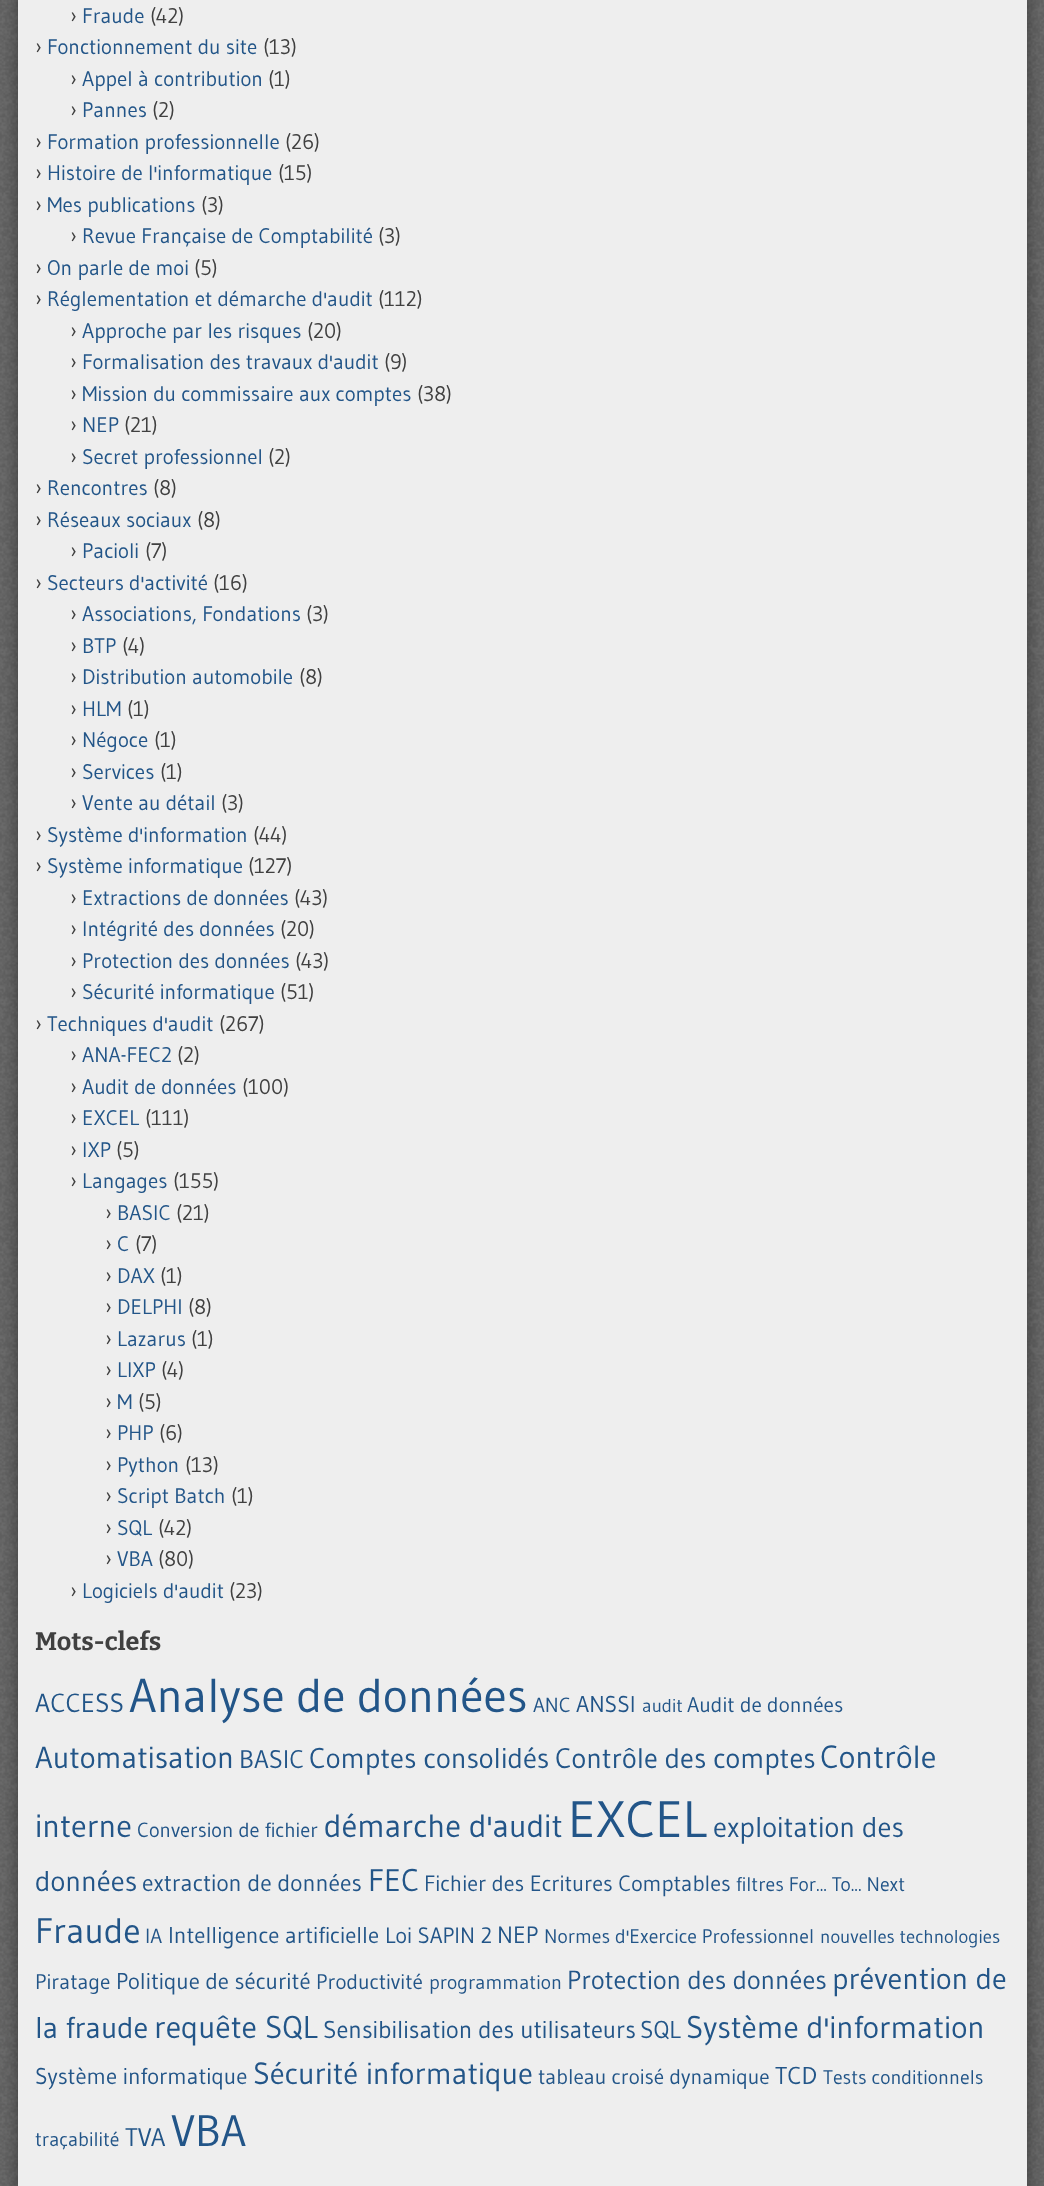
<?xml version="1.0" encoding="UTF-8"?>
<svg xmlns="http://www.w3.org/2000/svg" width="1044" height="2186">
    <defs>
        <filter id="blur1" x="-50%" y="-200%" width="200%" height="500%"><feGaussianBlur stdDeviation="9"/></filter>
    </defs>
    <rect width="100%" height="100%" fill="#666666"/>
    <image x="0" y="0" width="1044" height="2186" href="img_01.png"/>
    <rect x="18" y="-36" width="1009" height="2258" rx="9" fill="#000000" fill-opacity="0.4" filter="url(#blur1)"/>
    <rect x="18" y="0" width="1009" height="2181" fill="#EEEEEE"/>
    <text x="70" y="23" font-family="Gudea" font-size="21" fill="#404040">›</text>
    <text x="82" y="23" font-family="Gudea" font-size="21" fill="#225588">Fraude</text>
    <text x="150" y="23" font-family="Gudea" font-size="21" fill="#404040">(42)</text>
    <text x="35" y="54" font-family="Gudea" font-size="21" fill="#404040">›</text>
    <text x="47" y="54" font-family="Gudea" font-size="21" fill="#225588">Fonctionnement du site</text>
    <text x="263" y="54" font-family="Gudea" font-size="21" fill="#404040">(13)</text>
    <text x="70" y="86" font-family="Gudea" font-size="21" fill="#404040">›</text>
    <text x="82" y="86" font-family="Gudea" font-size="21" fill="#225588">Appel à contribution</text>
    <text x="268" y="86" font-family="Gudea" font-size="21" fill="#404040">(1)</text>
    <text x="70" y="117" font-family="Gudea" font-size="21" fill="#404040">›</text>
    <text x="82" y="117" font-family="Gudea" font-size="21" fill="#225588">Pannes</text>
    <text x="152" y="117" font-family="Gudea" font-size="21" fill="#404040">(2)</text>
    <text x="35" y="149" font-family="Gudea" font-size="21" fill="#404040">›</text>
    <text x="47" y="149" font-family="Gudea" font-size="21" fill="#225588">Formation professionnelle</text>
    <text x="285" y="149" font-family="Gudea" font-size="21" fill="#404040">(26)</text>
    <text x="35" y="180" font-family="Gudea" font-size="21" fill="#404040">›</text>
    <text x="47" y="180" font-family="Gudea" font-size="21" fill="#225588">Histoire de l'informatique</text>
    <text x="278" y="180" font-family="Gudea" font-size="21" fill="#404040">(15)</text>
    <text x="35" y="212" font-family="Gudea" font-size="21" fill="#404040">›</text>
    <text x="47" y="212" font-family="Gudea" font-size="21" fill="#225588">Mes publications</text>
    <text x="201" y="212" font-family="Gudea" font-size="21" fill="#404040">(3)</text>
    <text x="70" y="243" font-family="Gudea" font-size="21" fill="#404040">›</text>
    <text x="82" y="243" font-family="Gudea" font-size="21" fill="#225588">Revue Française de Comptabilité</text>
    <text x="378" y="243" font-family="Gudea" font-size="21" fill="#404040">(3)</text>
    <text x="35" y="275" font-family="Gudea" font-size="21" fill="#404040">›</text>
    <text x="47" y="275" font-family="Gudea" font-size="21" fill="#225588">On parle de moi</text>
    <text x="194" y="275" font-family="Gudea" font-size="21" fill="#404040">(5)</text>
    <text x="35" y="306" font-family="Gudea" font-size="21" fill="#404040">›</text>
    <text x="47" y="306" font-family="Gudea" font-size="21" fill="#225588">Réglementation et démarche d'audit</text>
    <text x="378" y="306" font-family="Gudea" font-size="21" fill="#404040">(112)</text>
    <text x="70" y="338" font-family="Gudea" font-size="21" fill="#404040">›</text>
    <text x="82" y="338" font-family="Gudea" font-size="21" fill="#225588">Approche par les risques</text>
    <text x="307" y="338" font-family="Gudea" font-size="21" fill="#404040">(20)</text>
    <text x="70" y="369" font-family="Gudea" font-size="21" fill="#404040">›</text>
    <text x="82" y="369" font-family="Gudea" font-size="21" fill="#225588">Formalisation des travaux d'audit</text>
    <text x="384" y="369" font-family="Gudea" font-size="21" fill="#404040">(9)</text>
    <text x="70" y="401" font-family="Gudea" font-size="21" fill="#404040">›</text>
    <text x="82" y="401" font-family="Gudea" font-size="21" fill="#225588">Mission du commissaire aux comptes</text>
    <text x="417" y="401" font-family="Gudea" font-size="21" fill="#404040">(38)</text>
    <text x="70" y="432" font-family="Gudea" font-size="21" fill="#404040">›</text>
    <text x="82" y="432" font-family="Gudea" font-size="21" fill="#225588">NEP</text>
    <text x="124" y="432" font-family="Gudea" font-size="21" fill="#404040">(21)</text>
    <text x="70" y="464" font-family="Gudea" font-size="21" fill="#404040">›</text>
    <text x="82" y="464" font-family="Gudea" font-size="21" fill="#225588">Secret professionnel</text>
    <text x="268" y="464" font-family="Gudea" font-size="21" fill="#404040">(2)</text>
    <text x="35" y="495" font-family="Gudea" font-size="21" fill="#404040">›</text>
    <text x="47" y="495" font-family="Gudea" font-size="21" fill="#225588">Rencontres</text>
    <text x="153" y="495" font-family="Gudea" font-size="21" fill="#404040">(8)</text>
    <text x="35" y="527" font-family="Gudea" font-size="21" fill="#404040">›</text>
    <text x="47" y="527" font-family="Gudea" font-size="21" fill="#225588">Réseaux sociaux</text>
    <text x="197" y="527" font-family="Gudea" font-size="21" fill="#404040">(8)</text>
    <text x="70" y="558" font-family="Gudea" font-size="21" fill="#404040">›</text>
    <text x="82" y="558" font-family="Gudea" font-size="21" fill="#225588">Pacioli</text>
    <text x="145" y="558" font-family="Gudea" font-size="21" fill="#404040">(7)</text>
    <text x="35" y="590" font-family="Gudea" font-size="21" fill="#404040">›</text>
    <text x="47" y="590" font-family="Gudea" font-size="21" fill="#225588">Secteurs d'activité</text>
    <text x="213" y="590" font-family="Gudea" font-size="21" fill="#404040">(16)</text>
    <text x="70" y="621" font-family="Gudea" font-size="21" fill="#404040">›</text>
    <text x="82" y="621" font-family="Gudea" font-size="21" fill="#225588">Associations, Fondations</text>
    <text x="306" y="621" font-family="Gudea" font-size="21" fill="#404040">(3)</text>
    <text x="70" y="653" font-family="Gudea" font-size="21" fill="#404040">›</text>
    <text x="82" y="653" font-family="Gudea" font-size="21" fill="#225588">BTP</text>
    <text x="122" y="653" font-family="Gudea" font-size="21" fill="#404040">(4)</text>
    <text x="70" y="684" font-family="Gudea" font-size="21" fill="#404040">›</text>
    <text x="82" y="684" font-family="Gudea" font-size="21" fill="#225588">Distribution automobile</text>
    <text x="299" y="684" font-family="Gudea" font-size="21" fill="#404040">(8)</text>
    <text x="70" y="716" font-family="Gudea" font-size="21" fill="#404040">›</text>
    <text x="82" y="716" font-family="Gudea" font-size="21" fill="#225588">HLM</text>
    <text x="127" y="716" font-family="Gudea" font-size="21" fill="#404040">(1)</text>
    <text x="70" y="747" font-family="Gudea" font-size="21" fill="#404040">›</text>
    <text x="82" y="747" font-family="Gudea" font-size="21" fill="#225588">Négoce</text>
    <text x="154" y="747" font-family="Gudea" font-size="21" fill="#404040">(1)</text>
    <text x="70" y="779" font-family="Gudea" font-size="21" fill="#404040">›</text>
    <text x="82" y="779" font-family="Gudea" font-size="21" fill="#225588">Services</text>
    <text x="160" y="779" font-family="Gudea" font-size="21" fill="#404040">(1)</text>
    <text x="70" y="810" font-family="Gudea" font-size="21" fill="#404040">›</text>
    <text x="82" y="810" font-family="Gudea" font-size="21" fill="#225588">Vente au détail</text>
    <text x="221" y="810" font-family="Gudea" font-size="21" fill="#404040">(3)</text>
    <text x="35" y="842" font-family="Gudea" font-size="21" fill="#404040">›</text>
    <text x="47" y="842" font-family="Gudea" font-size="21" fill="#225588">Système d'information</text>
    <text x="253" y="842" font-family="Gudea" font-size="21" fill="#404040">(44)</text>
    <text x="35" y="873" font-family="Gudea" font-size="21" fill="#404040">›</text>
    <text x="47" y="873" font-family="Gudea" font-size="21" fill="#225588">Système informatique</text>
    <text x="248" y="873" font-family="Gudea" font-size="21" fill="#404040">(127)</text>
    <text x="70" y="905" font-family="Gudea" font-size="21" fill="#404040">›</text>
    <text x="82" y="905" font-family="Gudea" font-size="21" fill="#225588">Extractions de données</text>
    <text x="294" y="905" font-family="Gudea" font-size="21" fill="#404040">(43)</text>
    <text x="70" y="936" font-family="Gudea" font-size="21" fill="#404040">›</text>
    <text x="82" y="936" font-family="Gudea" font-size="21" fill="#225588">Intégrité des données</text>
    <text x="280" y="936" font-family="Gudea" font-size="21" fill="#404040">(20)</text>
    <text x="70" y="968" font-family="Gudea" font-size="21" fill="#404040">›</text>
    <text x="82" y="968" font-family="Gudea" font-size="21" fill="#225588">Protection des données</text>
    <text x="295" y="968" font-family="Gudea" font-size="21" fill="#404040">(43)</text>
    <text x="70" y="999" font-family="Gudea" font-size="21" fill="#404040">›</text>
    <text x="82" y="999" font-family="Gudea" font-size="21" fill="#225588">Sécurité informatique</text>
    <text x="280" y="999" font-family="Gudea" font-size="21" fill="#404040">(51)</text>
    <text x="35" y="1031" font-family="Gudea" font-size="21" fill="#404040">›</text>
    <text x="47" y="1031" font-family="Gudea" font-size="21" fill="#225588">Techniques d'audit</text>
    <text x="219" y="1031" font-family="Gudea" font-size="21" fill="#404040">(267)</text>
    <text x="70" y="1062" font-family="Gudea" font-size="21" fill="#404040">›</text>
    <text x="82" y="1062" font-family="Gudea" font-size="21" fill="#225588">ANA-FEC2</text>
    <text x="177" y="1062" font-family="Gudea" font-size="21" fill="#404040">(2)</text>
    <text x="70" y="1094" font-family="Gudea" font-size="21" fill="#404040">›</text>
    <text x="82" y="1094" font-family="Gudea" font-size="21" fill="#225588">Audit de données</text>
    <text x="242" y="1094" font-family="Gudea" font-size="21" fill="#404040">(100)</text>
    <text x="70" y="1125" font-family="Gudea" font-size="21" fill="#404040">›</text>
    <text x="82" y="1125" font-family="Gudea" font-size="21" fill="#225588">EXCEL</text>
    <text x="145" y="1125" font-family="Gudea" font-size="21" fill="#404040">(111)</text>
    <text x="70" y="1157" font-family="Gudea" font-size="21" fill="#404040">›</text>
    <text x="82" y="1157" font-family="Gudea" font-size="21" fill="#225588">IXP</text>
    <text x="116" y="1157" font-family="Gudea" font-size="21" fill="#404040">(5)</text>
    <text x="70" y="1188" font-family="Gudea" font-size="21" fill="#404040">›</text>
    <text x="82" y="1188" font-family="Gudea" font-size="21" fill="#225588">Langages</text>
    <text x="173" y="1188" font-family="Gudea" font-size="21" fill="#404040">(155)</text>
    <text x="105" y="1220" font-family="Gudea" font-size="21" fill="#404040">›</text>
    <text x="117" y="1220" font-family="Gudea" font-size="21" fill="#225588">BASIC</text>
    <text x="176" y="1220" font-family="Gudea" font-size="21" fill="#404040">(21)</text>
    <text x="105" y="1251" font-family="Gudea" font-size="21" fill="#404040">›</text>
    <text x="117" y="1251" font-family="Gudea" font-size="21" fill="#225588">C</text>
    <text x="135" y="1251" font-family="Gudea" font-size="21" fill="#404040">(7)</text>
    <text x="105" y="1283" font-family="Gudea" font-size="21" fill="#404040">›</text>
    <text x="117" y="1283" font-family="Gudea" font-size="21" fill="#225588">DAX</text>
    <text x="160" y="1283" font-family="Gudea" font-size="21" fill="#404040">(1)</text>
    <text x="105" y="1314" font-family="Gudea" font-size="21" fill="#404040">›</text>
    <text x="117" y="1314" font-family="Gudea" font-size="21" fill="#225588">DELPHI</text>
    <text x="188" y="1314" font-family="Gudea" font-size="21" fill="#404040">(8)</text>
    <text x="105" y="1346" font-family="Gudea" font-size="21" fill="#404040">›</text>
    <text x="117" y="1346" font-family="Gudea" font-size="21" fill="#225588">Lazarus</text>
    <text x="191" y="1346" font-family="Gudea" font-size="21" fill="#404040">(1)</text>
    <text x="105" y="1377" font-family="Gudea" font-size="21" fill="#404040">›</text>
    <text x="117" y="1377" font-family="Gudea" font-size="21" fill="#225588">LIXP</text>
    <text x="161" y="1377" font-family="Gudea" font-size="21" fill="#404040">(4)</text>
    <text x="105" y="1409" font-family="Gudea" font-size="21" fill="#404040">›</text>
    <text x="117" y="1409" font-family="Gudea" font-size="21" fill="#225588">M</text>
    <text x="138" y="1409" font-family="Gudea" font-size="21" fill="#404040">(5)</text>
    <text x="105" y="1440" font-family="Gudea" font-size="21" fill="#404040">›</text>
    <text x="117" y="1440" font-family="Gudea" font-size="21" fill="#225588">PHP</text>
    <text x="159" y="1440" font-family="Gudea" font-size="21" fill="#404040">(6)</text>
    <text x="105" y="1472" font-family="Gudea" font-size="21" fill="#404040">›</text>
    <text x="117" y="1472" font-family="Gudea" font-size="21" fill="#225588">Python</text>
    <text x="185" y="1472" font-family="Gudea" font-size="21" fill="#404040">(13)</text>
    <text x="105" y="1503" font-family="Gudea" font-size="21" fill="#404040">›</text>
    <text x="117" y="1503" font-family="Gudea" font-size="21" fill="#225588">Script Batch</text>
    <text x="231" y="1503" font-family="Gudea" font-size="21" fill="#404040">(1)</text>
    <text x="105" y="1535" font-family="Gudea" font-size="21" fill="#404040">›</text>
    <text x="117" y="1535" font-family="Gudea" font-size="21" fill="#225588">SQL</text>
    <text x="158" y="1535" font-family="Gudea" font-size="21" fill="#404040">(42)</text>
    <text x="105" y="1566" font-family="Gudea" font-size="21" fill="#404040">›</text>
    <text x="117" y="1566" font-family="Gudea" font-size="21" fill="#225588">VBA</text>
    <text x="158" y="1566" font-family="Gudea" font-size="21" fill="#404040">(80)</text>
    <text x="70" y="1598" font-family="Gudea" font-size="21" fill="#404040">›</text>
    <text x="82" y="1598" font-family="Gudea" font-size="21" fill="#225588">Logiciels d'audit</text>
    <text x="229" y="1598" font-family="Gudea" font-size="21" fill="#404040">(23)</text>
    <text x="35" y="1650" font-family="Bitter" font-size="25.25" font-weight="100" fill="#404040">Mots-clefs</text>
    <text x="35" y="1712" font-family="Gudea" font-size="26.25" fill="#225588">ACCESS</text>
    <text x="129" y="1712" font-family="Gudea" font-size="47.5" fill="#225588">Analyse de données</text>
    <text x="533" y="1712" font-family="Gudea" font-size="20.5" fill="#225588">ANC</text>
    <text x="576" y="1712" font-family="Gudea" font-size="22.75" fill="#225588">ANSSI</text>
    <text x="642" y="1712" font-family="Gudea" font-size="18.75" fill="#225588">audit</text>
    <text x="687" y="1712" font-family="Gudea" font-size="21.25" fill="#225588">Audit de données</text>
    <text x="35" y="1768" font-family="Gudea" font-size="30.5" fill="#225588">Automatisation</text>
    <text x="239" y="1768" font-family="Gudea" font-size="25.5" fill="#225588">BASIC</text>
    <text x="309" y="1768" font-family="Gudea" font-size="28.5" fill="#225588">Comptes consolidés</text>
    <text x="555" y="1768" font-family="Gudea" font-size="28.25" fill="#225588">Contrôle des comptes</text>
    <text x="820" y="1768" font-family="Gudea" font-size="32" fill="#225588">Contrôle</text>
    <text x="35" y="1837" font-family="Gudea" font-size="32" fill="#225588">interne</text>
    <text x="137" y="1837" font-family="Gudea" font-size="20.5" fill="#225588">Conversion de fichier</text>
    <text x="324" y="1837" font-family="Gudea" font-size="32.25" fill="#225588">démarche d'audit</text>
    <text x="568" y="1837" font-family="Gudea" font-size="51" fill="#225588">EXCEL</text>
    <text x="713" y="1837" font-family="Gudea" font-size="28.5" fill="#225588">exploitation des</text>
    <text x="35" y="1891" font-family="Gudea" font-size="28.5" fill="#225588">données</text>
    <text x="142" y="1891" font-family="Gudea" font-size="23.5" fill="#225588">extraction de données</text>
    <text x="368" y="1891" font-family="Gudea" font-size="31.25" fill="#225588">FEC</text>
    <text x="424" y="1891" font-family="Gudea" font-size="22.1" fill="#225588">Fichier des Ecritures Comptables</text>
    <text x="736" y="1891" font-family="Gudea" font-size="19.75" fill="#225588">filtres For... To... Next</text>
    <text x="35" y="1943" font-family="Gudea" font-size="35.5" fill="#225588">Fraude</text>
    <text x="145" y="1943" font-family="Gudea" font-size="20.5" fill="#225588">IA</text>
    <text x="168" y="1943" font-family="Gudea" font-size="22.75" fill="#225588">Intelligence artificielle</text>
    <text x="385" y="1943" font-family="Gudea" font-size="22.1" fill="#225588">Loi SAPIN 2</text>
    <text x="497" y="1943" font-family="Gudea" font-size="23.5" fill="#225588">NEP</text>
    <text x="544" y="1943" font-family="Gudea" font-size="19.75" fill="#225588">Normes d'Exercice Professionnel</text>
    <text x="820" y="1943" font-family="Gudea" font-size="18.75" fill="#225588">nouvelles technologies</text>
    <text x="35" y="1989" font-family="Gudea" font-size="21.25" fill="#225588">Piratage</text>
    <text x="116" y="1989" font-family="Gudea" font-size="22.75" fill="#225588">Politique de sécurité</text>
    <text x="316" y="1989" font-family="Gudea" font-size="21.25" fill="#225588">Productivité</text>
    <text x="429" y="1989" font-family="Gudea" font-size="19.75" fill="#225588">programmation</text>
    <text x="567" y="1989" font-family="Gudea" font-size="26.25" fill="#225588">Protection des données</text>
    <text x="832" y="1989" font-family="Gudea" font-size="30" fill="#225588">prévention de</text>
    <text x="35" y="2038" font-family="Gudea" font-size="30" fill="#225588">la fraude</text>
    <text x="154" y="2038" font-family="Gudea" font-size="31.5" fill="#225588">requête SQL</text>
    <text x="323" y="2038" font-family="Gudea" font-size="24.4" fill="#225588">Sensibilisation des utilisateurs</text>
    <text x="640" y="2038" font-family="Gudea" font-size="24.4" fill="#225588">SQL</text>
    <text x="686" y="2038" font-family="Gudea" font-size="31.25" fill="#225588">Système d'information</text>
    <text x="35" y="2084" font-family="Gudea" font-size="22.75" fill="#225588">Système informatique</text>
    <text x="253" y="2084" font-family="Gudea" font-size="30.5" fill="#225588">Sécurité informatique</text>
    <text x="538" y="2084" font-family="Gudea" font-size="21.25" fill="#225588">tableau croisé dynamique</text>
    <text x="775" y="2084" font-family="Gudea" font-size="24.4" fill="#225588">TCD</text>
    <text x="823" y="2084" font-family="Gudea" font-size="19.75" fill="#225588">Tests conditionnels</text>
    <text x="35" y="2146" font-family="Gudea" font-size="19.75" fill="#225588">traçabilité</text>
    <text x="125" y="2146" font-family="Gudea" font-size="25.5" fill="#225588">TVA</text>
    <text x="171" y="2146" font-family="Gudea" font-size="44" fill="#225588">VBA</text>
    <rect x="18" y="2181" width="1009" height="5" fill="#EEEEEE"/>
</svg>
